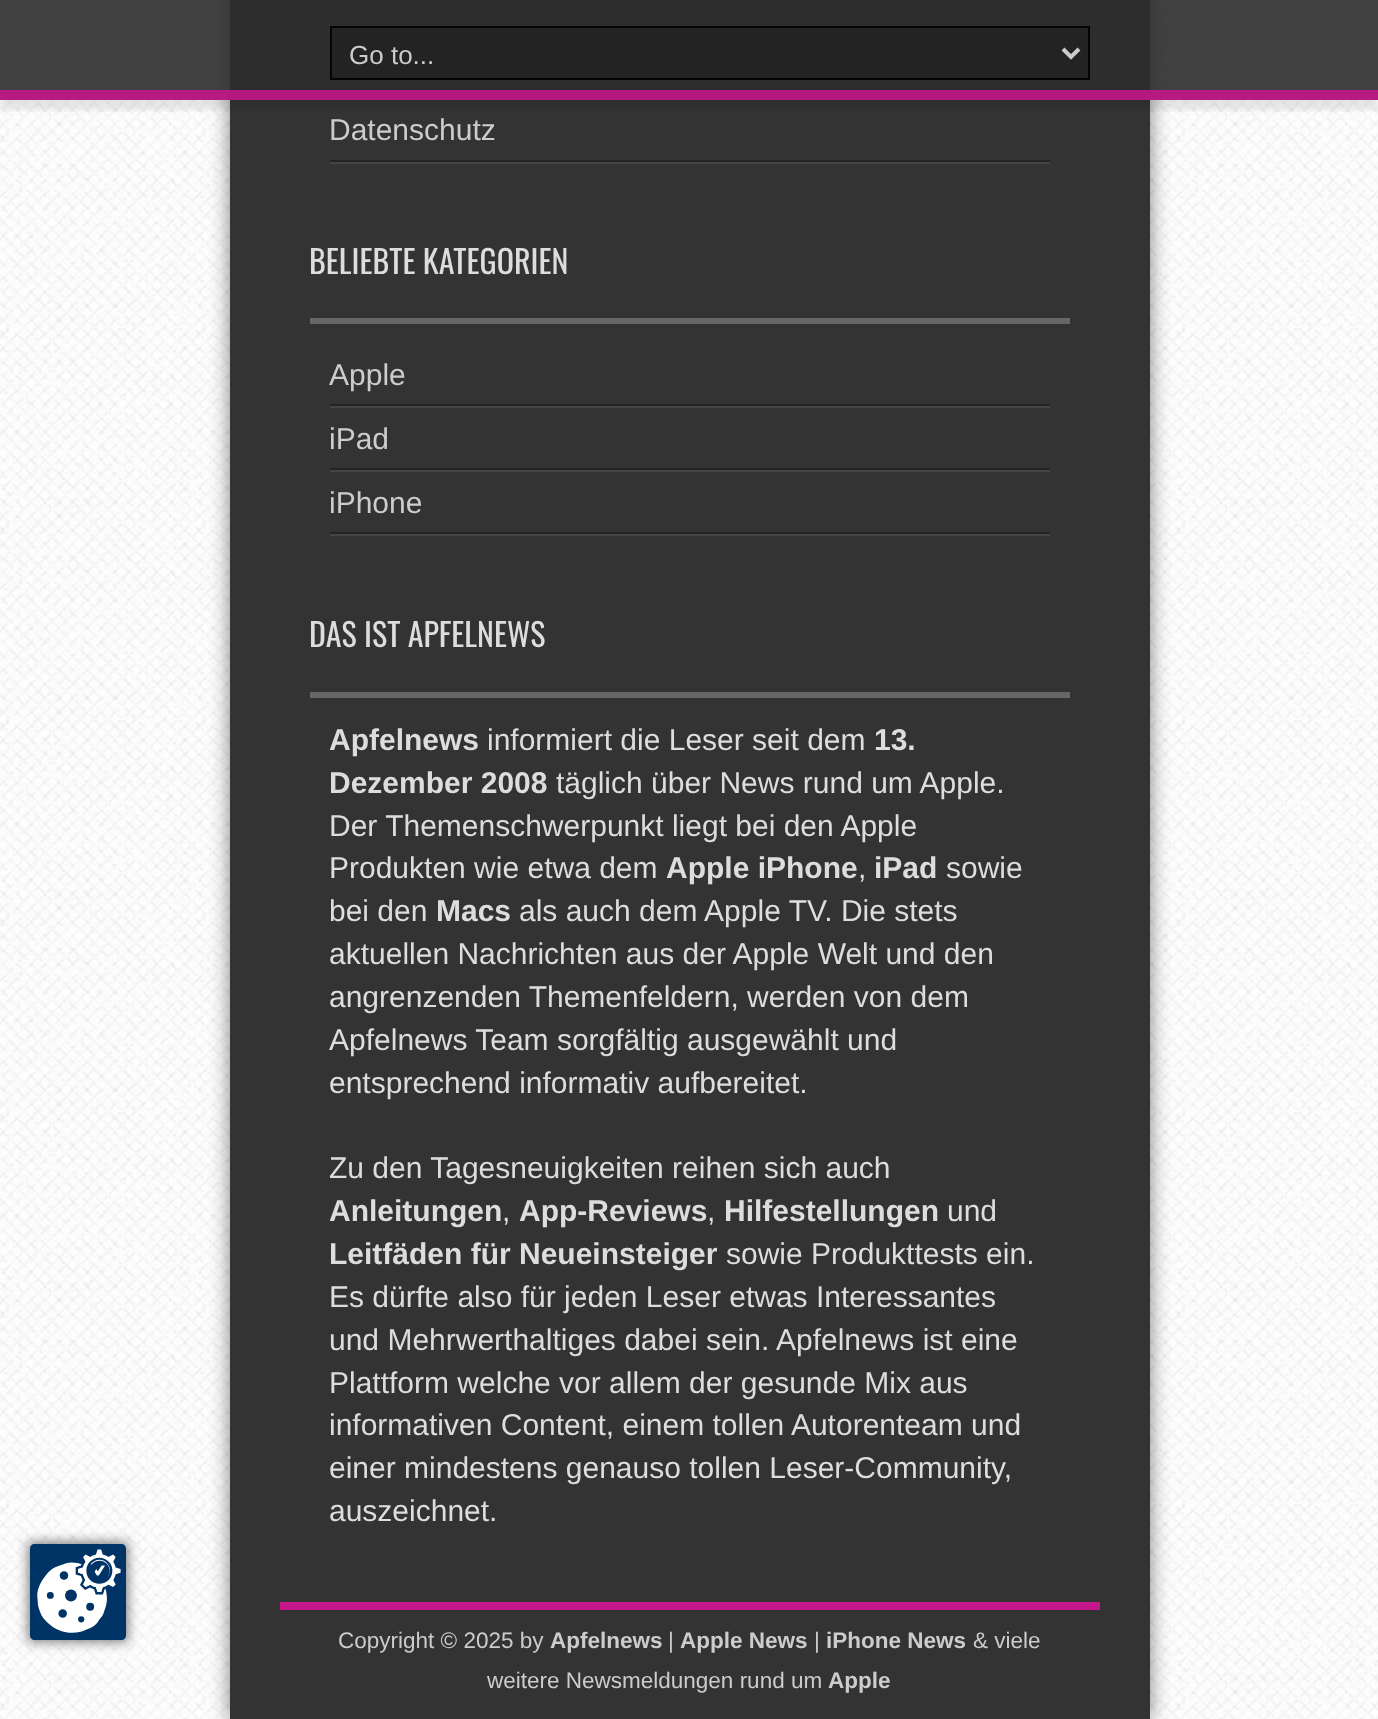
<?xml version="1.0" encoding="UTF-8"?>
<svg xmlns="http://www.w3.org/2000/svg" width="1378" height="1719">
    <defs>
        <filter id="blur1" x="-50%" y="-200%" width="200%" height="500%"><feGaussianBlur stdDeviation="6"/></filter>
        <filter id="blur2" x="-50%" y="-200%" width="200%" height="500%"><feGaussianBlur stdDeviation="10"/></filter>
        <clipPath id="clip1"><rect x="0" y="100" width="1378" height="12"/></clipPath>
        <filter id="blur3" x="-50%" y="-200%" width="200%" height="500%"><feGaussianBlur stdDeviation="3"/></filter>
    </defs>
    <rect width="100%" height="100%" fill="#FFFFFF"/>
    <image x="0" y="0" width="1378" height="1719" href="img_01.png"/>
    <rect x="28" y="1542" width="100" height="100" fill="#000000" fill-opacity="0.5" filter="url(#blur1)"/>
    <image x="30" y="1544" width="96" height="96" href="img_02.png"/>
    <rect x="230" y="-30" width="920" height="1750" fill="#000000" fill-opacity="0.5" filter="url(#blur2)"/>
    <rect x="230" y="0" width="920" height="1719" fill="#333333"/>
    <rect x="330" y="32" width="720" height="2" fill="#232323"/>
    <rect x="330" y="34" width="720" height="2" fill="#444444"/>
    <rect x="330" y="96" width="720" height="2" fill="#232323"/>
    <rect x="330" y="98" width="720" height="2" fill="#444444"/>
    <g clip-path="url(#clip1)">
        <rect x="0" y="10" width="1378" height="100" fill="#000000" fill-opacity="0.09" filter="url(#blur3)"/>
    </g>
    <rect x="0" y="0" width="1378" height="100" fill="#2C2C2C" fill-opacity="0.9"/>
    <rect x="0" y="90" width="1378" height="10" fill="#C4178A" fill-opacity="0.9"/>
    <rect x="331" y="27" width="758" height="52" fill="#222222" fill-opacity="0.9" stroke="#040404" stroke-width="2"/>
    <path d="M 1063 49 L 1071 57 L 1079 49" fill="none" stroke="#CCCCCC" stroke-width="4"/>
    <text x="349" y="64" font-family="Liberation Sans" font-size="26" fill="#CCCCCC">Go to...</text>
    <rect x="330" y="162" width="720" height="2" fill="#444444"/>
    <rect x="330" y="160" width="720" height="2" fill="#232323"/>
    <text x="329" y="140" font-family="Liberation Sans" font-size="30" fill="#CCCCCC">Datenschutz</text>
    <rect x="310" y="318" width="760" height="6" fill="#666666"/>
    <text x="309" y="274" font-family="Oswald" font-size="32" fill="#DDDDDD">BELIEBTE KATEGORIEN</text>
    <rect x="330" y="534" width="720" height="2" fill="#444444"/>
    <rect x="330" y="404" width="720" height="2" fill="#232323"/>
    <text x="329" y="385" font-family="Liberation Sans" font-size="30" fill="#CCCCCC">Apple</text>
    <rect x="330" y="406" width="720" height="2" fill="#444444"/>
    <rect x="330" y="468" width="720" height="2" fill="#232323"/>
    <text x="329" y="449" font-family="Liberation Sans" font-size="30" fill="#CCCCCC">iPad</text>
    <rect x="330" y="470" width="720" height="2" fill="#444444"/>
    <rect x="330" y="532" width="720" height="2" fill="#232323"/>
    <text x="329" y="513" font-family="Liberation Sans" font-size="30" fill="#CCCCCC">iPhone</text>
    <rect x="310" y="692" width="760" height="6" fill="#666666"/>
    <text x="309" y="647" font-family="Oswald" font-size="32" fill="#DDDDDD">DAS IST APFELNEWS</text>
    <text x="329" y="750" font-family="Liberation Sans" font-size="30" font-weight="700" fill="#DDDDDD">Apfelnews</text>
    <text x="487" y="750" font-family="Liberation Sans" font-size="30" fill="#DDDDDD">informiert die Leser seit dem</text>
    <text x="874" y="750" font-family="Liberation Sans" font-size="30" font-weight="700" fill="#DDDDDD">13.</text>
    <text x="329" y="793" font-family="Liberation Sans" font-size="30" font-weight="700" fill="#DDDDDD">Dezember 2008</text>
    <text x="556" y="793" font-family="Liberation Sans" font-size="30" fill="#DDDDDD">täglich über News rund um Apple.</text>
    <text font-family="Liberation Sans" font-size="30" fill="#DDDDDD">
        <tspan x="329" y="836">Der Themenschwerpunkt liegt bei den Apple</tspan>
        <tspan x="329" y="878">Produkten wie etwa dem</tspan>
    </text>
    <text x="666" y="878" font-family="Liberation Sans" font-size="30" font-weight="700" fill="#DDDDDD">Apple iPhone</text>
    <text x="858" y="878" font-family="Liberation Sans" font-size="30" fill="#DDDDDD">,</text>
    <text x="874" y="878" font-family="Liberation Sans" font-size="30" font-weight="700" fill="#DDDDDD">iPad</text>
    <text x="946" y="878" font-family="Liberation Sans" font-size="30" fill="#DDDDDD">sowie</text>
    <text x="329" y="921" font-family="Liberation Sans" font-size="30" fill="#DDDDDD">bei den</text>
    <text x="436" y="921" font-family="Liberation Sans" font-size="30" font-weight="700" fill="#DDDDDD">Macs</text>
    <text x="519" y="921" font-family="Liberation Sans" font-size="30" fill="#DDDDDD">als auch dem Apple TV. Die stets</text>
    <text font-family="Liberation Sans" font-size="30" fill="#DDDDDD">
        <tspan x="329" y="964">aktuellen Nachrichten aus der Apple Welt und den</tspan>
        <tspan x="329" y="1007">angrenzenden Themenfeldern, werden von dem</tspan>
        <tspan x="329" y="1050">Apfelnews Team sorgfältig ausgewählt und</tspan>
        <tspan x="329" y="1093">entsprechend informativ aufbereitet.</tspan>
    </text>
    <text x="329" y="1178" font-family="Liberation Sans" font-size="30" fill="#DDDDDD">Zu den Tagesneuigkeiten reihen sich auch</text>
    <text x="329" y="1221" font-family="Liberation Sans" font-size="30" font-weight="700" fill="#DDDDDD">Anleitungen</text>
    <text x="502" y="1221" font-family="Liberation Sans" font-size="30" fill="#DDDDDD">,</text>
    <text x="519" y="1221" font-family="Liberation Sans" font-size="30" font-weight="700" fill="#DDDDDD">App-Reviews</text>
    <text x="707" y="1221" font-family="Liberation Sans" font-size="30" fill="#DDDDDD">,</text>
    <text x="724" y="1221" font-family="Liberation Sans" font-size="30" font-weight="700" fill="#DDDDDD">Hilfestellungen</text>
    <text x="947" y="1221" font-family="Liberation Sans" font-size="30" fill="#DDDDDD">und</text>
    <text x="329" y="1264" font-family="Liberation Sans" font-size="30" font-weight="700" fill="#DDDDDD">Leitfäden für Neueinsteiger</text>
    <text x="726" y="1264" font-family="Liberation Sans" font-size="30" fill="#DDDDDD">sowie Produkttests ein.</text>
    <text font-family="Liberation Sans" font-size="30" fill="#DDDDDD">
        <tspan x="329" y="1307">Es dürfte also für jeden Leser etwas Interessantes</tspan>
        <tspan x="329" y="1350">und Mehrwerthaltiges dabei sein. Apfelnews ist eine</tspan>
        <tspan x="329" y="1393">Plattform welche vor allem der gesunde Mix aus</tspan>
        <tspan x="329" y="1435">informativen Content, einem tollen Autorenteam und</tspan>
        <tspan x="329" y="1478">einer mindestens genauso tollen Leser-Community,</tspan>
        <tspan x="329" y="1521">auszeichnet.</tspan>
    </text>
    <rect x="280" y="1602" width="820" height="8" fill="#C4178A"/>
    <text x="338" y="1648" font-family="Liberation Sans" font-size="22.5" fill="#CCCCCC">Copyright © 2025 by</text>
    <text x="550" y="1648" font-family="Liberation Sans" font-size="22.5" font-weight="700" fill="#CCCCCC">Apfelnews</text>
    <text x="668" y="1648" font-family="Liberation Sans" font-size="22.5" fill="#CCCCCC">|</text>
    <text x="680" y="1648" font-family="Liberation Sans" font-size="22.5" font-weight="700" fill="#CCCCCC">Apple News</text>
    <text x="814" y="1648" font-family="Liberation Sans" font-size="22.5" fill="#CCCCCC">|</text>
    <text x="826" y="1648" font-family="Liberation Sans" font-size="22.5" font-weight="700" fill="#CCCCCC">iPhone News</text>
    <text x="973" y="1648" font-family="Liberation Sans" font-size="22.5" fill="#CCCCCC">&amp; viele</text>
    <text x="487" y="1688" font-family="Liberation Sans" font-size="22.5" fill="#CCCCCC">weitere Newsmeldungen rund um</text>
    <text x="828" y="1688" font-family="Liberation Sans" font-size="22.5" font-weight="700" fill="#CCCCCC">Apple</text>
</svg>
